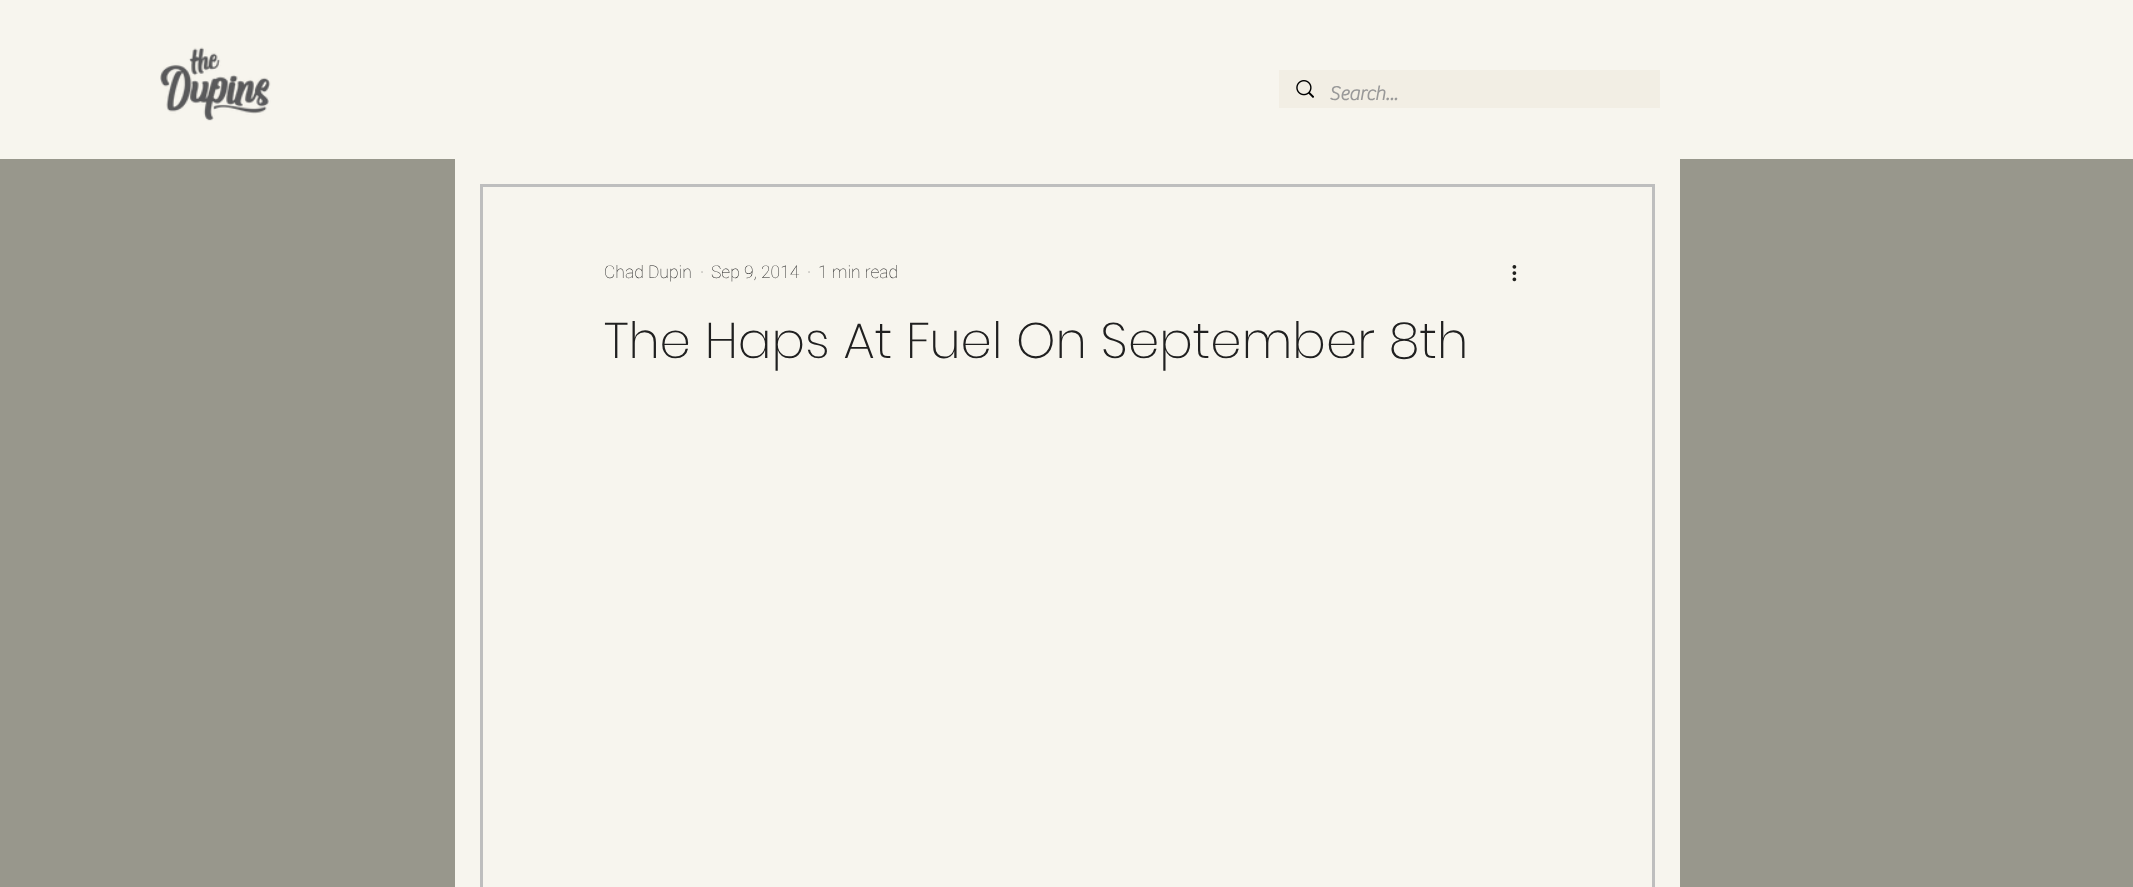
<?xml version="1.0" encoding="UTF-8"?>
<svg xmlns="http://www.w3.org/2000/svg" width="2133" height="887">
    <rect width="100%" height="100%" fill="#98978C"/>
    <rect x="0" y="0" width="2133" height="159" fill="#F7F5EE"/>
    <image x="160" y="47" width="111" height="74" href="img_01.png"/>
    <rect x="1279" y="70" width="381" height="38" fill="#F2EEE4"/>
    <image x="1296" y="80" width="18" height="18" href="img_02.png"/>
    <text x="1329" y="100" font-family="'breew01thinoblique'" font-size="20" font-weight="700" fill="#999999">Search...</text>
    <rect x="455" y="159" width="1225" height="728" fill="#F7F5EE"/>
    <rect x="481.5" y="185.5" width="1172" height="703" fill="none" stroke="#BEBEBE" stroke-width="3"/>
    <text x="604" y="278" font-family="Roboto" font-size="17.5" font-weight="100" fill="#202020">Chad Dupin</text>
    <text x="700" y="278" font-family="Roboto" font-size="17.5" font-weight="100" fill="#202020">·</text>
    <text x="711" y="278" font-family="Roboto" font-size="17.5" font-weight="100" fill="#202020">Sep 9, 2014</text>
    <text x="807" y="278" font-family="Roboto" font-size="17.5" font-weight="100" fill="#202020">·</text>
    <text x="818" y="278" font-family="Roboto" font-size="17.5" font-weight="100" fill="#202020">1 min read</text>
    <image x="1512" y="265" width="5" height="17" href="img_03.png"/>
    <text x="604" y="358" font-family="Poppins" font-size="50" font-weight="200" fill="#202020">The Haps At Fuel On September 8th</text>
</svg>
